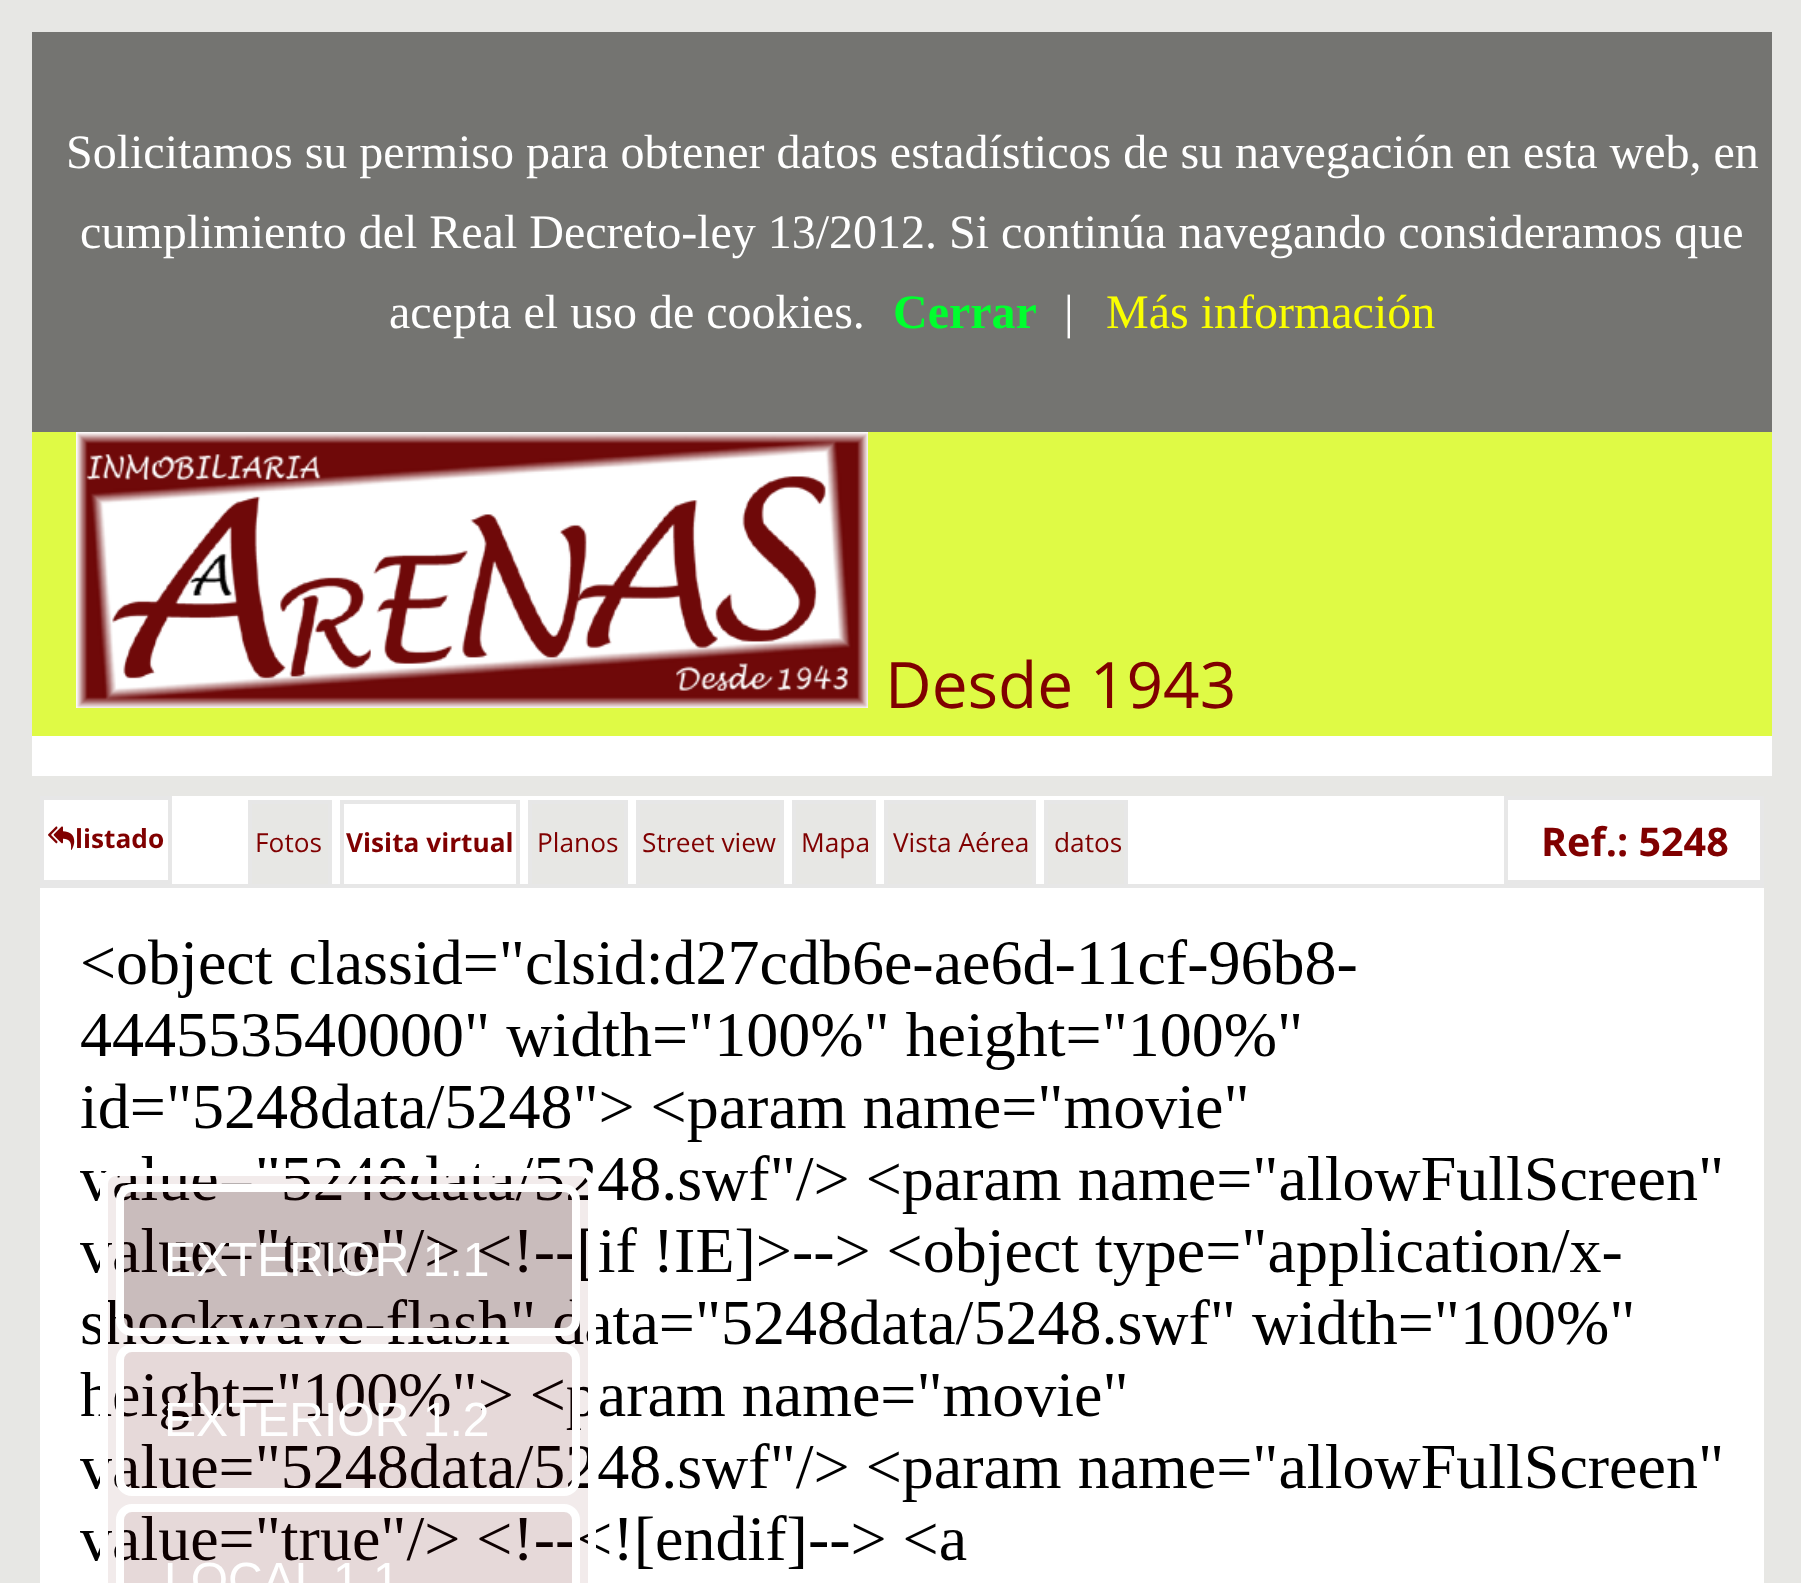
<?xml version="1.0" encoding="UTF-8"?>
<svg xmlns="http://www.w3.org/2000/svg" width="1801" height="1583">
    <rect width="100%" height="100%" fill="#E7E7E4"/>
    <rect x="32" y="32" width="1740" height="400" fill="#747471"/>
    <text x="66" y="168" font-family="Liberation Serif" font-size="48" fill="#FFFFFF">Solicitamos su permiso para obtener datos estadísticos de su navegación en esta web, en</text>
    <text x="80" y="248" font-family="Liberation Serif" font-size="48" fill="#FFFFFF">cumplimiento del Real Decreto-ley 13/2012. Si continúa navegando consideramos que</text>
    <text x="389" y="328" font-family="Liberation Serif" font-size="48" fill="#FFFFFF">acepta el uso de cookies.</text>
    <text x="893" y="328" font-family="Liberation Serif" font-size="48" font-weight="700" fill="#00FF2E">Cerrar</text>
    <text x="1064" y="328" font-family="Liberation Serif" font-size="48" fill="#FFFFFF">|</text>
    <text x="1106" y="328" font-family="Liberation Serif" font-size="48" fill="#FAFF00">Más información</text>
    <rect x="32" y="432" width="1740" height="304" fill="#DFFA45"/>
    <image x="76" y="432" width="792" height="276" href="img_01.png"/>
    <text x="885" y="708" font-family="Open Sans" font-size="64" fill="#800000">Desde 1943</text>
    <rect x="32" y="736" width="1740" height="40" fill="#FFFFFF"/>
    <rect x="40" y="796" width="1724" height="787" fill="#FFFFFF"/>
    <rect x="40" y="884" width="1724" height="4" fill="#E7E7E7"/>
    <rect x="40" y="880" width="132" height="4" fill="#E7E7E7"/>
    <rect x="40" y="796" width="132" height="4" fill="#E7E7E7"/>
    <rect x="168" y="796" width="4" height="84" fill="#E7E7E7"/>
    <rect x="40" y="796" width="4" height="84" fill="#E7E7E7"/>
    <image x="48" y="826" width="27" height="24" href="img_02.png"/>
    <text x="75" y="848" font-family="Open Sans" font-size="26.25" font-weight="700" fill="#800000">listado</text>
    <rect x="252" y="804" width="76" height="80" fill="#E7E7E4"/>
    <rect x="248" y="800" width="84" height="4" fill="#E7E7E7"/>
    <rect x="328" y="800" width="4" height="84" fill="#E7E7E7"/>
    <rect x="248" y="800" width="4" height="84" fill="#E7E7E7"/>
    <text x="255" y="852" font-family="Open Sans" font-size="26.25" fill="#800000">Fotos</text>
    <rect x="340" y="800" width="180" height="4" fill="#E7E7E7"/>
    <rect x="516" y="800" width="4" height="84" fill="#E7E7E7"/>
    <rect x="340" y="800" width="4" height="84" fill="#E7E7E7"/>
    <text x="346" y="852" font-family="Open Sans" font-size="26.25" font-weight="700" fill="#800000">Visita virtual</text>
    <rect x="532" y="804" width="92" height="80" fill="#E7E7E4"/>
    <rect x="528" y="800" width="100" height="4" fill="#E7E7E7"/>
    <rect x="624" y="800" width="4" height="84" fill="#E7E7E7"/>
    <rect x="528" y="800" width="4" height="84" fill="#E7E7E7"/>
    <text x="537" y="852" font-family="Open Sans" font-size="26.25" fill="#800000">Planos</text>
    <rect x="640" y="804" width="140" height="80" fill="#E7E7E4"/>
    <rect x="636" y="800" width="148" height="4" fill="#E7E7E7"/>
    <rect x="780" y="800" width="4" height="84" fill="#E7E7E7"/>
    <rect x="636" y="800" width="4" height="84" fill="#E7E7E7"/>
    <text x="642" y="852" font-family="Open Sans" font-size="26.25" fill="#800000">Street view</text>
    <rect x="796" y="804" width="76" height="80" fill="#E7E7E4"/>
    <rect x="792" y="800" width="84" height="4" fill="#E7E7E7"/>
    <rect x="872" y="800" width="4" height="84" fill="#E7E7E7"/>
    <rect x="792" y="800" width="4" height="84" fill="#E7E7E7"/>
    <text x="801" y="852" font-family="Open Sans" font-size="26.25" fill="#800000">Mapa</text>
    <rect x="888" y="804" width="144" height="80" fill="#E7E7E4"/>
    <rect x="884" y="800" width="152" height="4" fill="#E7E7E7"/>
    <rect x="1032" y="800" width="4" height="84" fill="#E7E7E7"/>
    <rect x="884" y="800" width="4" height="84" fill="#E7E7E7"/>
    <text x="893" y="852" font-family="Open Sans" font-size="26.25" fill="#800000">Vista Aérea</text>
    <rect x="1048" y="804" width="76" height="80" fill="#E7E7E4"/>
    <rect x="1044" y="800" width="84" height="4" fill="#E7E7E7"/>
    <rect x="1124" y="800" width="4" height="84" fill="#E7E7E7"/>
    <rect x="1044" y="800" width="4" height="84" fill="#E7E7E7"/>
    <text x="1054" y="852" font-family="Open Sans" font-size="26.25" fill="#800000">datos</text>
    <rect x="1504" y="880" width="260" height="4" fill="#E7E7E7"/>
    <rect x="1504" y="796" width="260" height="4" fill="#E7E7E7"/>
    <rect x="1760" y="796" width="4" height="84" fill="#E7E7E7"/>
    <rect x="1504" y="796" width="4" height="84" fill="#E7E7E7"/>
    <text x="1541" y="856" font-family="Open Sans" font-size="39.5" font-weight="700" fill="#800000">Ref.: 5248</text>
    <image x="80" y="939" width="1641" height="644" href="img_03.png"/>
</svg>
